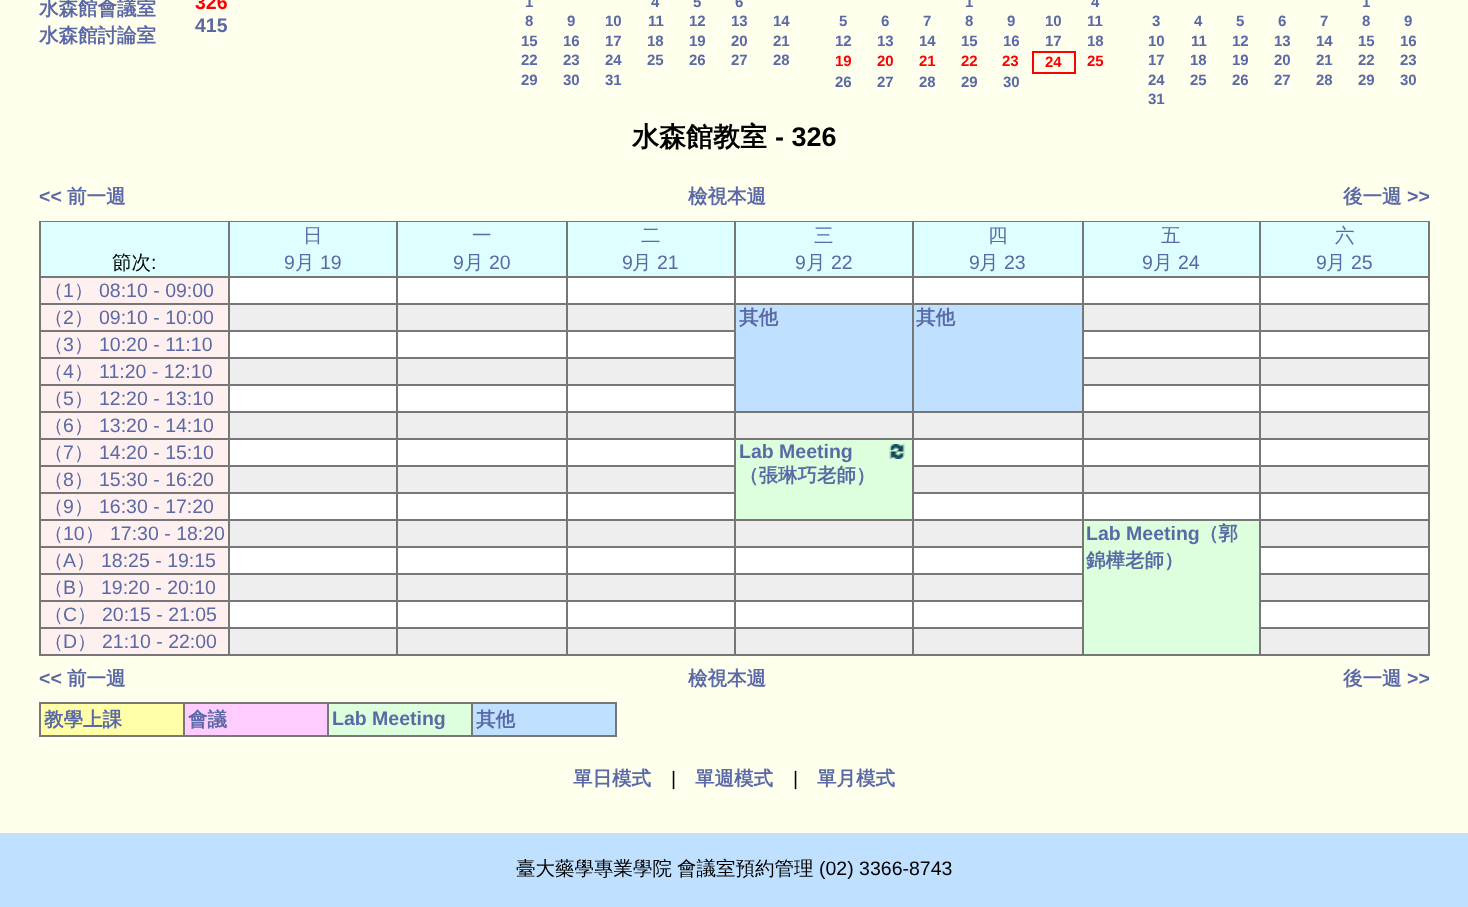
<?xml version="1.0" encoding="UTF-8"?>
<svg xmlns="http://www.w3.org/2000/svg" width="1468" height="907">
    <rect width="100%" height="100%" fill="#FFFFED"/>
    <text font-family="WenQuanYi Zen Hei" font-size="19.5" font-weight="700" fill="#5B69A6">
        <tspan x="39" y="15">水森館會議室</tspan>
        <tspan x="39" y="42">水森館討論室</tspan>
    </text>
    <text x="195" y="9" font-family="Liberation Sans" font-size="19.5" font-weight="700" fill="#FF0000">326</text>
    <text x="195" y="32" font-family="Liberation Sans" font-size="19.5" font-weight="700" fill="#5B69A6">415</text>
    <text x="525" y="7" font-family="Liberation Sans" font-size="15" font-weight="700" fill="#5B69A6">1</text>
    <text x="651" y="7" font-family="Liberation Sans" font-size="15" font-weight="700" fill="#5B69A6">4</text>
    <text x="693" y="7" font-family="Liberation Sans" font-size="15" font-weight="700" fill="#5B69A6">5</text>
    <text x="735" y="7" font-family="Liberation Sans" font-size="15" font-weight="700" fill="#5B69A6">6</text>
    <text x="525" y="26" font-family="Liberation Sans" font-size="15" font-weight="700" fill="#5B69A6">8</text>
    <text x="567" y="26" font-family="Liberation Sans" font-size="15" font-weight="700" fill="#5B69A6">9</text>
    <text x="605" y="26" font-family="Liberation Sans" font-size="15" font-weight="700" fill="#5B69A6">10</text>
    <text x="648" y="26" font-family="Liberation Sans" font-size="15" font-weight="700" fill="#5B69A6">11</text>
    <text x="689" y="26" font-family="Liberation Sans" font-size="15" font-weight="700" fill="#5B69A6">12</text>
    <text x="731" y="26" font-family="Liberation Sans" font-size="15" font-weight="700" fill="#5B69A6">13</text>
    <text x="773" y="26" font-family="Liberation Sans" font-size="15" font-weight="700" fill="#5B69A6">14</text>
    <text x="521" y="46" font-family="Liberation Sans" font-size="15" font-weight="700" fill="#5B69A6">15</text>
    <text x="563" y="46" font-family="Liberation Sans" font-size="15" font-weight="700" fill="#5B69A6">16</text>
    <text x="605" y="46" font-family="Liberation Sans" font-size="15" font-weight="700" fill="#5B69A6">17</text>
    <text x="647" y="46" font-family="Liberation Sans" font-size="15" font-weight="700" fill="#5B69A6">18</text>
    <text x="689" y="46" font-family="Liberation Sans" font-size="15" font-weight="700" fill="#5B69A6">19</text>
    <text x="731" y="46" font-family="Liberation Sans" font-size="15" font-weight="700" fill="#5B69A6">20</text>
    <text x="773" y="46" font-family="Liberation Sans" font-size="15" font-weight="700" fill="#5B69A6">21</text>
    <text x="521" y="65" font-family="Liberation Sans" font-size="15" font-weight="700" fill="#5B69A6">22</text>
    <text x="563" y="65" font-family="Liberation Sans" font-size="15" font-weight="700" fill="#5B69A6">23</text>
    <text x="605" y="65" font-family="Liberation Sans" font-size="15" font-weight="700" fill="#5B69A6">24</text>
    <text x="647" y="65" font-family="Liberation Sans" font-size="15" font-weight="700" fill="#5B69A6">25</text>
    <text x="689" y="65" font-family="Liberation Sans" font-size="15" font-weight="700" fill="#5B69A6">26</text>
    <text x="731" y="65" font-family="Liberation Sans" font-size="15" font-weight="700" fill="#5B69A6">27</text>
    <text x="773" y="65" font-family="Liberation Sans" font-size="15" font-weight="700" fill="#5B69A6">28</text>
    <text x="521" y="85" font-family="Liberation Sans" font-size="15" font-weight="700" fill="#5B69A6">29</text>
    <text x="563" y="85" font-family="Liberation Sans" font-size="15" font-weight="700" fill="#5B69A6">30</text>
    <text x="605" y="85" font-family="Liberation Sans" font-size="15" font-weight="700" fill="#5B69A6">31</text>
    <text x="965" y="7" font-family="Liberation Sans" font-size="15" font-weight="700" fill="#5B69A6">1</text>
    <text x="1091" y="7" font-family="Liberation Sans" font-size="15" font-weight="700" fill="#5B69A6">4</text>
    <text x="839" y="26" font-family="Liberation Sans" font-size="15" font-weight="700" fill="#5B69A6">5</text>
    <text x="881" y="26" font-family="Liberation Sans" font-size="15" font-weight="700" fill="#5B69A6">6</text>
    <text x="923" y="26" font-family="Liberation Sans" font-size="15" font-weight="700" fill="#5B69A6">7</text>
    <text x="965" y="26" font-family="Liberation Sans" font-size="15" font-weight="700" fill="#5B69A6">8</text>
    <text x="1007" y="26" font-family="Liberation Sans" font-size="15" font-weight="700" fill="#5B69A6">9</text>
    <text x="1045" y="26" font-family="Liberation Sans" font-size="15" font-weight="700" fill="#5B69A6">10</text>
    <text x="1087" y="26" font-family="Liberation Sans" font-size="15" font-weight="700" fill="#5B69A6">11</text>
    <text x="835" y="46" font-family="Liberation Sans" font-size="15" font-weight="700" fill="#5B69A6">12</text>
    <text x="877" y="46" font-family="Liberation Sans" font-size="15" font-weight="700" fill="#5B69A6">13</text>
    <text x="919" y="46" font-family="Liberation Sans" font-size="15" font-weight="700" fill="#5B69A6">14</text>
    <text x="961" y="46" font-family="Liberation Sans" font-size="15" font-weight="700" fill="#5B69A6">15</text>
    <text x="1003" y="46" font-family="Liberation Sans" font-size="15" font-weight="700" fill="#5B69A6">16</text>
    <text x="1045" y="46" font-family="Liberation Sans" font-size="15" font-weight="700" fill="#5B69A6">17</text>
    <text x="1087" y="46" font-family="Liberation Sans" font-size="15" font-weight="700" fill="#5B69A6">18</text>
    <text x="835" y="66" font-family="Liberation Sans" font-size="15" font-weight="700" fill="#FF0000">19</text>
    <text x="877" y="66" font-family="Liberation Sans" font-size="15" font-weight="700" fill="#FF0000">20</text>
    <text x="919" y="66" font-family="Liberation Sans" font-size="15" font-weight="700" fill="#FF0000">21</text>
    <text x="961" y="66" font-family="Liberation Sans" font-size="15" font-weight="700" fill="#FF0000">22</text>
    <text x="1002" y="66" font-family="Liberation Sans" font-size="15" font-weight="700" fill="#FF0000">23</text>
    <rect x="1032" y="51" width="44" height="2" fill="#FF0000"/>
    <rect x="1074" y="51" width="2" height="23" fill="#FF0000"/>
    <rect x="1032" y="72" width="44" height="2" fill="#FF0000"/>
    <rect x="1032" y="51" width="2" height="23" fill="#FF0000"/>
    <text x="1045" y="67" font-family="Liberation Sans" font-size="15" font-weight="700" fill="#FF0000">24</text>
    <text x="1087" y="66" font-family="Liberation Sans" font-size="15" font-weight="700" fill="#FF0000">25</text>
    <text x="835" y="87" font-family="Liberation Sans" font-size="15" font-weight="700" fill="#5B69A6">26</text>
    <text x="877" y="87" font-family="Liberation Sans" font-size="15" font-weight="700" fill="#5B69A6">27</text>
    <text x="919" y="87" font-family="Liberation Sans" font-size="15" font-weight="700" fill="#5B69A6">28</text>
    <text x="961" y="87" font-family="Liberation Sans" font-size="15" font-weight="700" fill="#5B69A6">29</text>
    <text x="1003" y="87" font-family="Liberation Sans" font-size="15" font-weight="700" fill="#5B69A6">30</text>
    <text x="1362" y="7" font-family="Liberation Sans" font-size="15" font-weight="700" fill="#5B69A6">1</text>
    <text x="1152" y="26" font-family="Liberation Sans" font-size="15" font-weight="700" fill="#5B69A6">3</text>
    <text x="1194" y="26" font-family="Liberation Sans" font-size="15" font-weight="700" fill="#5B69A6">4</text>
    <text x="1236" y="26" font-family="Liberation Sans" font-size="15" font-weight="700" fill="#5B69A6">5</text>
    <text x="1278" y="26" font-family="Liberation Sans" font-size="15" font-weight="700" fill="#5B69A6">6</text>
    <text x="1320" y="26" font-family="Liberation Sans" font-size="15" font-weight="700" fill="#5B69A6">7</text>
    <text x="1362" y="26" font-family="Liberation Sans" font-size="15" font-weight="700" fill="#5B69A6">8</text>
    <text x="1404" y="26" font-family="Liberation Sans" font-size="15" font-weight="700" fill="#5B69A6">9</text>
    <text x="1148" y="46" font-family="Liberation Sans" font-size="15" font-weight="700" fill="#5B69A6">10</text>
    <text x="1191" y="46" font-family="Liberation Sans" font-size="15" font-weight="700" fill="#5B69A6">11</text>
    <text x="1232" y="46" font-family="Liberation Sans" font-size="15" font-weight="700" fill="#5B69A6">12</text>
    <text x="1274" y="46" font-family="Liberation Sans" font-size="15" font-weight="700" fill="#5B69A6">13</text>
    <text x="1316" y="46" font-family="Liberation Sans" font-size="15" font-weight="700" fill="#5B69A6">14</text>
    <text x="1358" y="46" font-family="Liberation Sans" font-size="15" font-weight="700" fill="#5B69A6">15</text>
    <text x="1400" y="46" font-family="Liberation Sans" font-size="15" font-weight="700" fill="#5B69A6">16</text>
    <text x="1148" y="65" font-family="Liberation Sans" font-size="15" font-weight="700" fill="#5B69A6">17</text>
    <text x="1190" y="65" font-family="Liberation Sans" font-size="15" font-weight="700" fill="#5B69A6">18</text>
    <text x="1232" y="65" font-family="Liberation Sans" font-size="15" font-weight="700" fill="#5B69A6">19</text>
    <text x="1274" y="65" font-family="Liberation Sans" font-size="15" font-weight="700" fill="#5B69A6">20</text>
    <text x="1316" y="65" font-family="Liberation Sans" font-size="15" font-weight="700" fill="#5B69A6">21</text>
    <text x="1358" y="65" font-family="Liberation Sans" font-size="15" font-weight="700" fill="#5B69A6">22</text>
    <text x="1400" y="65" font-family="Liberation Sans" font-size="15" font-weight="700" fill="#5B69A6">23</text>
    <text x="1148" y="85" font-family="Liberation Sans" font-size="15" font-weight="700" fill="#5B69A6">24</text>
    <text x="1190" y="85" font-family="Liberation Sans" font-size="15" font-weight="700" fill="#5B69A6">25</text>
    <text x="1232" y="85" font-family="Liberation Sans" font-size="15" font-weight="700" fill="#5B69A6">26</text>
    <text x="1274" y="85" font-family="Liberation Sans" font-size="15" font-weight="700" fill="#5B69A6">27</text>
    <text x="1316" y="85" font-family="Liberation Sans" font-size="15" font-weight="700" fill="#5B69A6">28</text>
    <text x="1358" y="85" font-family="Liberation Sans" font-size="15" font-weight="700" fill="#5B69A6">29</text>
    <text x="1400" y="85" font-family="Liberation Sans" font-size="15" font-weight="700" fill="#5B69A6">30</text>
    <text x="1148" y="104" font-family="Liberation Sans" font-size="15" font-weight="700" fill="#5B69A6">31</text>
    <text x="632" y="146" font-family="WenQuanYi Zen Hei" font-size="27" font-weight="700" fill="#000000">水森館教室</text>
    <text x="775" y="146" font-family="Liberation Sans" font-size="27" font-weight="700" fill="#000000">- 326</text>
    <text x="39" y="203" font-family="Liberation Sans" font-size="19.5" font-weight="700" fill="#5B69A6">&lt;&lt;</text>
    <text x="67" y="203" font-family="WenQuanYi Zen Hei" font-size="19.5" font-weight="700" fill="#5B69A6">前一週</text>
    <text x="688" y="203" font-family="WenQuanYi Zen Hei" font-size="19.5" font-weight="700" fill="#5B69A6">檢視本週</text>
    <text x="1343" y="203" font-family="WenQuanYi Zen Hei" font-size="19.5" font-weight="700" fill="#5B69A6">後一週</text>
    <text x="1407" y="203" font-family="Liberation Sans" font-size="19.5" font-weight="700" fill="#5B69A6">&gt;&gt;</text>
    <rect x="40" y="222" width="1389" height="433" fill="none" stroke="#777777" stroke-width="2"/>
    <rect x="41" y="222" width="187" height="54" fill="#DDFFFF"/>
    <text x="112" y="269" font-family="WenQuanYi Zen Hei" font-size="19.5" font-weight="500" fill="#000000">節次</text>
    <text x="151" y="269" font-family="Liberation Sans" font-size="19.5" fill="#000000">:</text>
    <rect x="230" y="222" width="166" height="54" fill="#DDFFFF"/>
    <rect x="228" y="222" width="2" height="54" fill="#777777"/>
    <text x="303" y="242" font-family="WenQuanYi Zen Hei" font-size="19.5" font-weight="500" fill="#5B69A6">日</text>
    <text x="284" y="269" font-family="Liberation Sans" font-size="19.5" fill="#5B69A6">9</text>
    <text x="295" y="269" font-family="WenQuanYi Zen Hei" font-size="19.5" font-weight="500" fill="#5B69A6">月</text>
    <text x="320" y="269" font-family="Liberation Sans" font-size="19.5" fill="#5B69A6">19</text>
    <rect x="398" y="222" width="168" height="54" fill="#DDFFFF"/>
    <rect x="396" y="222" width="2" height="54" fill="#777777"/>
    <text x="472" y="242" font-family="WenQuanYi Zen Hei" font-size="19.5" font-weight="500" fill="#5B69A6">一</text>
    <text x="453" y="269" font-family="Liberation Sans" font-size="19.5" fill="#5B69A6">9</text>
    <text x="464" y="269" font-family="WenQuanYi Zen Hei" font-size="19.5" font-weight="500" fill="#5B69A6">月</text>
    <text x="489" y="269" font-family="Liberation Sans" font-size="19.5" fill="#5B69A6">20</text>
    <rect x="568" y="222" width="166" height="54" fill="#DDFFFF"/>
    <rect x="566" y="222" width="2" height="54" fill="#777777"/>
    <text x="641" y="242" font-family="WenQuanYi Zen Hei" font-size="19.5" font-weight="500" fill="#5B69A6">二</text>
    <text x="622" y="269" font-family="Liberation Sans" font-size="19.5" fill="#5B69A6">9</text>
    <text x="632" y="269" font-family="WenQuanYi Zen Hei" font-size="19.5" font-weight="500" fill="#5B69A6">月</text>
    <text x="657" y="269" font-family="Liberation Sans" font-size="19.5" fill="#5B69A6">21</text>
    <rect x="736" y="222" width="176" height="54" fill="#DDFFFF"/>
    <rect x="734" y="222" width="2" height="54" fill="#777777"/>
    <text x="814" y="242" font-family="WenQuanYi Zen Hei" font-size="19.5" font-weight="500" fill="#5B69A6">三</text>
    <text x="795" y="269" font-family="Liberation Sans" font-size="19.5" fill="#5B69A6">9</text>
    <text x="806" y="269" font-family="WenQuanYi Zen Hei" font-size="19.5" font-weight="500" fill="#5B69A6">月</text>
    <text x="831" y="269" font-family="Liberation Sans" font-size="19.5" fill="#5B69A6">22</text>
    <rect x="914" y="222" width="168" height="54" fill="#DDFFFF"/>
    <rect x="912" y="222" width="2" height="54" fill="#777777"/>
    <text x="988" y="242" font-family="WenQuanYi Zen Hei" font-size="19.5" font-weight="500" fill="#5B69A6">四</text>
    <text x="969" y="269" font-family="Liberation Sans" font-size="19.5" fill="#5B69A6">9</text>
    <text x="979" y="269" font-family="WenQuanYi Zen Hei" font-size="19.5" font-weight="500" fill="#5B69A6">月</text>
    <text x="1004" y="269" font-family="Liberation Sans" font-size="19.5" fill="#5B69A6">23</text>
    <rect x="1084" y="222" width="175" height="54" fill="#DDFFFF"/>
    <rect x="1082" y="222" width="2" height="54" fill="#777777"/>
    <text x="1161" y="242" font-family="WenQuanYi Zen Hei" font-size="19.5" font-weight="500" fill="#5B69A6">五</text>
    <text x="1142" y="269" font-family="Liberation Sans" font-size="19.5" fill="#5B69A6">9</text>
    <text x="1153" y="269" font-family="WenQuanYi Zen Hei" font-size="19.5" font-weight="500" fill="#5B69A6">月</text>
    <text x="1178" y="269" font-family="Liberation Sans" font-size="19.5" fill="#5B69A6">24</text>
    <rect x="1261" y="222" width="167" height="54" fill="#DDFFFF"/>
    <rect x="1259" y="222" width="2" height="54" fill="#777777"/>
    <text x="1335" y="242" font-family="WenQuanYi Zen Hei" font-size="19.5" font-weight="500" fill="#5B69A6">六</text>
    <text x="1316" y="269" font-family="Liberation Sans" font-size="19.5" fill="#5B69A6">9</text>
    <text x="1326" y="269" font-family="WenQuanYi Zen Hei" font-size="19.5" font-weight="500" fill="#5B69A6">月</text>
    <text x="1351" y="269" font-family="Liberation Sans" font-size="19.5" fill="#5B69A6">25</text>
    <rect x="41" y="278" width="187" height="25" fill="#FFF0F0"/>
    <rect x="41" y="276" width="1387" height="2" fill="#777777"/>
    <text x="44" y="297" font-family="WenQuanYi Zen Hei" font-size="19.5" font-weight="500" fill="#5B69A6">（</text>
    <text x="63" y="297" font-family="Liberation Sans" font-size="19.5" fill="#5B69A6">1</text>
    <text x="74" y="297" font-family="WenQuanYi Zen Hei" font-size="19.5" font-weight="500" fill="#5B69A6">）</text>
    <text x="99" y="297" font-family="Liberation Sans" font-size="19.5" fill="#5B69A6">08:10 - 09:00</text>
    <rect x="230" y="278" width="166" height="25" fill="#FFFFFF"/>
    <rect x="228" y="276" width="2" height="27" fill="#777777"/>
    <rect x="398" y="278" width="168" height="25" fill="#FFFFFF"/>
    <rect x="396" y="276" width="2" height="27" fill="#777777"/>
    <rect x="568" y="278" width="166" height="25" fill="#FFFFFF"/>
    <rect x="566" y="276" width="2" height="27" fill="#777777"/>
    <rect x="736" y="278" width="176" height="25" fill="#FFFFFF"/>
    <rect x="734" y="276" width="2" height="27" fill="#777777"/>
    <rect x="914" y="278" width="168" height="25" fill="#FFFFFF"/>
    <rect x="912" y="276" width="2" height="27" fill="#777777"/>
    <rect x="1084" y="278" width="175" height="25" fill="#FFFFFF"/>
    <rect x="1082" y="276" width="2" height="27" fill="#777777"/>
    <rect x="1261" y="278" width="167" height="25" fill="#FFFFFF"/>
    <rect x="1259" y="276" width="2" height="27" fill="#777777"/>
    <rect x="41" y="305" width="187" height="25" fill="#FFF0F0"/>
    <rect x="41" y="303" width="1387" height="2" fill="#777777"/>
    <text x="44" y="324" font-family="WenQuanYi Zen Hei" font-size="19.5" font-weight="500" fill="#5B69A6">（</text>
    <text x="63" y="324" font-family="Liberation Sans" font-size="19.5" fill="#5B69A6">2</text>
    <text x="74" y="324" font-family="WenQuanYi Zen Hei" font-size="19.5" font-weight="500" fill="#5B69A6">）</text>
    <text x="99" y="324" font-family="Liberation Sans" font-size="19.5" fill="#5B69A6">09:10 - 10:00</text>
    <rect x="230" y="305" width="166" height="25" fill="#EEEEEE"/>
    <rect x="228" y="303" width="2" height="27" fill="#777777"/>
    <rect x="398" y="305" width="168" height="25" fill="#EEEEEE"/>
    <rect x="396" y="303" width="2" height="27" fill="#777777"/>
    <rect x="568" y="305" width="166" height="25" fill="#EEEEEE"/>
    <rect x="566" y="303" width="2" height="27" fill="#777777"/>
    <rect x="736" y="305" width="176" height="106" fill="#C0E0FF"/>
    <rect x="734" y="303" width="2" height="108" fill="#777777"/>
    <text x="739" y="324" font-family="WenQuanYi Zen Hei" font-size="19.5" font-weight="700" fill="#5B69A6">其他</text>
    <rect x="914" y="305" width="168" height="106" fill="#C0E0FF"/>
    <rect x="912" y="303" width="2" height="108" fill="#777777"/>
    <text x="916" y="324" font-family="WenQuanYi Zen Hei" font-size="19.5" font-weight="700" fill="#5B69A6">其他</text>
    <rect x="1084" y="305" width="175" height="25" fill="#EEEEEE"/>
    <rect x="1082" y="303" width="2" height="27" fill="#777777"/>
    <rect x="1261" y="305" width="167" height="25" fill="#EEEEEE"/>
    <rect x="1259" y="303" width="2" height="27" fill="#777777"/>
    <rect x="230" y="332" width="166" height="25" fill="#FFFFFF"/>
    <rect x="41" y="330" width="693" height="2" fill="#777777"/>
    <rect x="228" y="330" width="2" height="27" fill="#777777"/>
    <rect x="398" y="332" width="168" height="25" fill="#FFFFFF"/>
    <rect x="396" y="330" width="2" height="27" fill="#777777"/>
    <rect x="568" y="332" width="166" height="25" fill="#FFFFFF"/>
    <rect x="566" y="330" width="2" height="27" fill="#777777"/>
    <rect x="1084" y="332" width="175" height="25" fill="#FFFFFF"/>
    <rect x="1082" y="330" width="346" height="2" fill="#777777"/>
    <rect x="1082" y="330" width="2" height="27" fill="#777777"/>
    <rect x="41" y="332" width="187" height="25" fill="#FFF0F0"/>
    <text x="44" y="351" font-family="WenQuanYi Zen Hei" font-size="19.5" font-weight="500" fill="#5B69A6">（</text>
    <text x="63" y="351" font-family="Liberation Sans" font-size="19.5" fill="#5B69A6">3</text>
    <text x="74" y="351" font-family="WenQuanYi Zen Hei" font-size="19.5" font-weight="500" fill="#5B69A6">）</text>
    <text x="99" y="351" font-family="Liberation Sans" font-size="19.5" fill="#5B69A6">10:20 - 11:10</text>
    <rect x="1261" y="332" width="167" height="25" fill="#FFFFFF"/>
    <rect x="1259" y="330" width="2" height="27" fill="#777777"/>
    <rect x="230" y="359" width="166" height="25" fill="#EEEEEE"/>
    <rect x="41" y="357" width="693" height="2" fill="#777777"/>
    <rect x="228" y="357" width="2" height="27" fill="#777777"/>
    <rect x="398" y="359" width="168" height="25" fill="#EEEEEE"/>
    <rect x="396" y="357" width="2" height="27" fill="#777777"/>
    <rect x="568" y="359" width="166" height="25" fill="#EEEEEE"/>
    <rect x="566" y="357" width="2" height="27" fill="#777777"/>
    <rect x="1084" y="359" width="175" height="25" fill="#EEEEEE"/>
    <rect x="1082" y="357" width="346" height="2" fill="#777777"/>
    <rect x="1082" y="357" width="2" height="27" fill="#777777"/>
    <rect x="41" y="359" width="187" height="25" fill="#FFF0F0"/>
    <text x="44" y="378" font-family="WenQuanYi Zen Hei" font-size="19.5" font-weight="500" fill="#5B69A6">（</text>
    <text x="63" y="378" font-family="Liberation Sans" font-size="19.5" fill="#5B69A6">4</text>
    <text x="74" y="378" font-family="WenQuanYi Zen Hei" font-size="19.5" font-weight="500" fill="#5B69A6">）</text>
    <text x="99" y="378" font-family="Liberation Sans" font-size="19.5" fill="#5B69A6">11:20 - 12:10</text>
    <rect x="1261" y="359" width="167" height="25" fill="#EEEEEE"/>
    <rect x="1259" y="357" width="2" height="27" fill="#777777"/>
    <rect x="230" y="386" width="166" height="25" fill="#FFFFFF"/>
    <rect x="41" y="384" width="693" height="2" fill="#777777"/>
    <rect x="228" y="384" width="2" height="27" fill="#777777"/>
    <rect x="398" y="386" width="168" height="25" fill="#FFFFFF"/>
    <rect x="396" y="384" width="2" height="27" fill="#777777"/>
    <rect x="568" y="386" width="166" height="25" fill="#FFFFFF"/>
    <rect x="566" y="384" width="2" height="27" fill="#777777"/>
    <rect x="1084" y="386" width="175" height="25" fill="#FFFFFF"/>
    <rect x="1082" y="384" width="346" height="2" fill="#777777"/>
    <rect x="1082" y="384" width="2" height="27" fill="#777777"/>
    <rect x="41" y="386" width="187" height="25" fill="#FFF0F0"/>
    <text x="44" y="405" font-family="WenQuanYi Zen Hei" font-size="19.5" font-weight="500" fill="#5B69A6">（</text>
    <text x="63" y="405" font-family="Liberation Sans" font-size="19.5" fill="#5B69A6">5</text>
    <text x="74" y="405" font-family="WenQuanYi Zen Hei" font-size="19.5" font-weight="500" fill="#5B69A6">）</text>
    <text x="99" y="405" font-family="Liberation Sans" font-size="19.5" fill="#5B69A6">12:20 - 13:10</text>
    <rect x="1261" y="386" width="167" height="25" fill="#FFFFFF"/>
    <rect x="1259" y="384" width="2" height="27" fill="#777777"/>
    <rect x="41" y="413" width="187" height="25" fill="#FFF0F0"/>
    <rect x="41" y="411" width="1387" height="2" fill="#777777"/>
    <text x="44" y="432" font-family="WenQuanYi Zen Hei" font-size="19.5" font-weight="500" fill="#5B69A6">（</text>
    <text x="63" y="432" font-family="Liberation Sans" font-size="19.5" fill="#5B69A6">6</text>
    <text x="74" y="432" font-family="WenQuanYi Zen Hei" font-size="19.5" font-weight="500" fill="#5B69A6">）</text>
    <text x="99" y="432" font-family="Liberation Sans" font-size="19.5" fill="#5B69A6">13:20 - 14:10</text>
    <rect x="230" y="413" width="166" height="25" fill="#EEEEEE"/>
    <rect x="228" y="411" width="2" height="27" fill="#777777"/>
    <rect x="398" y="413" width="168" height="25" fill="#EEEEEE"/>
    <rect x="396" y="411" width="2" height="27" fill="#777777"/>
    <rect x="568" y="413" width="166" height="25" fill="#EEEEEE"/>
    <rect x="566" y="411" width="2" height="27" fill="#777777"/>
    <rect x="736" y="413" width="176" height="25" fill="#EEEEEE"/>
    <rect x="734" y="411" width="2" height="27" fill="#777777"/>
    <rect x="914" y="413" width="168" height="25" fill="#EEEEEE"/>
    <rect x="912" y="411" width="2" height="27" fill="#777777"/>
    <rect x="1084" y="413" width="175" height="25" fill="#EEEEEE"/>
    <rect x="1082" y="411" width="2" height="27" fill="#777777"/>
    <rect x="1261" y="413" width="167" height="25" fill="#EEEEEE"/>
    <rect x="1259" y="411" width="2" height="27" fill="#777777"/>
    <rect x="41" y="440" width="187" height="25" fill="#FFF0F0"/>
    <rect x="41" y="438" width="1387" height="2" fill="#777777"/>
    <text x="44" y="459" font-family="WenQuanYi Zen Hei" font-size="19.5" font-weight="500" fill="#5B69A6">（</text>
    <text x="63" y="459" font-family="Liberation Sans" font-size="19.5" fill="#5B69A6">7</text>
    <text x="74" y="459" font-family="WenQuanYi Zen Hei" font-size="19.5" font-weight="500" fill="#5B69A6">）</text>
    <text x="99" y="459" font-family="Liberation Sans" font-size="19.5" fill="#5B69A6">14:20 - 15:10</text>
    <rect x="230" y="440" width="166" height="25" fill="#FFFFFF"/>
    <rect x="228" y="438" width="2" height="27" fill="#777777"/>
    <rect x="398" y="440" width="168" height="25" fill="#FFFFFF"/>
    <rect x="396" y="438" width="2" height="27" fill="#777777"/>
    <rect x="568" y="440" width="166" height="25" fill="#FFFFFF"/>
    <rect x="566" y="438" width="2" height="27" fill="#777777"/>
    <rect x="736" y="440" width="176" height="79" fill="#DDFFDD"/>
    <rect x="734" y="438" width="2" height="81" fill="#777777"/>
    <text x="739" y="458" font-family="Liberation Sans" font-size="19.5" font-weight="700" fill="#5B69A6">Lab Meeting</text>
    <image x="889" y="444" width="16" height="15" href="img_01.png"/>
    <text x="739" y="482" font-family="WenQuanYi Zen Hei" font-size="19.5" font-weight="700" fill="#5B69A6">（張琳巧老師）</text>
    <rect x="914" y="440" width="168" height="25" fill="#FFFFFF"/>
    <rect x="912" y="438" width="2" height="27" fill="#777777"/>
    <rect x="1084" y="440" width="175" height="25" fill="#FFFFFF"/>
    <rect x="1082" y="438" width="2" height="27" fill="#777777"/>
    <rect x="1261" y="440" width="167" height="25" fill="#FFFFFF"/>
    <rect x="1259" y="438" width="2" height="27" fill="#777777"/>
    <rect x="230" y="467" width="166" height="25" fill="#EEEEEE"/>
    <rect x="41" y="465" width="693" height="2" fill="#777777"/>
    <rect x="228" y="465" width="2" height="27" fill="#777777"/>
    <rect x="398" y="467" width="168" height="25" fill="#EEEEEE"/>
    <rect x="396" y="465" width="2" height="27" fill="#777777"/>
    <rect x="568" y="467" width="166" height="25" fill="#EEEEEE"/>
    <rect x="566" y="465" width="2" height="27" fill="#777777"/>
    <rect x="914" y="467" width="168" height="25" fill="#EEEEEE"/>
    <rect x="912" y="465" width="516" height="2" fill="#777777"/>
    <rect x="912" y="465" width="2" height="27" fill="#777777"/>
    <rect x="41" y="467" width="187" height="25" fill="#FFF0F0"/>
    <text x="44" y="486" font-family="WenQuanYi Zen Hei" font-size="19.5" font-weight="500" fill="#5B69A6">（</text>
    <text x="63" y="486" font-family="Liberation Sans" font-size="19.5" fill="#5B69A6">8</text>
    <text x="74" y="486" font-family="WenQuanYi Zen Hei" font-size="19.5" font-weight="500" fill="#5B69A6">）</text>
    <text x="99" y="486" font-family="Liberation Sans" font-size="19.5" fill="#5B69A6">15:30 - 16:20</text>
    <rect x="1084" y="467" width="175" height="25" fill="#EEEEEE"/>
    <rect x="1082" y="465" width="2" height="27" fill="#777777"/>
    <rect x="1261" y="467" width="167" height="25" fill="#EEEEEE"/>
    <rect x="1259" y="465" width="2" height="27" fill="#777777"/>
    <rect x="230" y="494" width="166" height="25" fill="#FFFFFF"/>
    <rect x="41" y="492" width="693" height="2" fill="#777777"/>
    <rect x="228" y="492" width="2" height="27" fill="#777777"/>
    <rect x="398" y="494" width="168" height="25" fill="#FFFFFF"/>
    <rect x="396" y="492" width="2" height="27" fill="#777777"/>
    <rect x="568" y="494" width="166" height="25" fill="#FFFFFF"/>
    <rect x="566" y="492" width="2" height="27" fill="#777777"/>
    <rect x="914" y="494" width="168" height="25" fill="#FFFFFF"/>
    <rect x="912" y="492" width="516" height="2" fill="#777777"/>
    <rect x="912" y="492" width="2" height="27" fill="#777777"/>
    <rect x="41" y="494" width="187" height="25" fill="#FFF0F0"/>
    <text x="44" y="513" font-family="WenQuanYi Zen Hei" font-size="19.5" font-weight="500" fill="#5B69A6">（</text>
    <text x="63" y="513" font-family="Liberation Sans" font-size="19.5" fill="#5B69A6">9</text>
    <text x="74" y="513" font-family="WenQuanYi Zen Hei" font-size="19.5" font-weight="500" fill="#5B69A6">）</text>
    <text x="99" y="513" font-family="Liberation Sans" font-size="19.5" fill="#5B69A6">16:30 - 17:20</text>
    <rect x="1084" y="494" width="175" height="25" fill="#FFFFFF"/>
    <rect x="1082" y="492" width="2" height="27" fill="#777777"/>
    <rect x="1261" y="494" width="167" height="25" fill="#FFFFFF"/>
    <rect x="1259" y="492" width="2" height="27" fill="#777777"/>
    <rect x="41" y="521" width="187" height="25" fill="#FFF0F0"/>
    <rect x="41" y="519" width="1387" height="2" fill="#777777"/>
    <text x="44" y="540" font-family="WenQuanYi Zen Hei" font-size="19.5" font-weight="500" fill="#5B69A6">（</text>
    <text x="63" y="540" font-family="Liberation Sans" font-size="19.5" fill="#5B69A6">10</text>
    <text x="85" y="540" font-family="WenQuanYi Zen Hei" font-size="19.5" font-weight="500" fill="#5B69A6">）</text>
    <text x="110" y="540" font-family="Liberation Sans" font-size="19.5" fill="#5B69A6">17:30 - 18:20</text>
    <rect x="230" y="521" width="166" height="25" fill="#EEEEEE"/>
    <rect x="228" y="519" width="2" height="27" fill="#777777"/>
    <rect x="398" y="521" width="168" height="25" fill="#EEEEEE"/>
    <rect x="396" y="519" width="2" height="27" fill="#777777"/>
    <rect x="568" y="521" width="166" height="25" fill="#EEEEEE"/>
    <rect x="566" y="519" width="2" height="27" fill="#777777"/>
    <rect x="736" y="521" width="176" height="25" fill="#EEEEEE"/>
    <rect x="734" y="519" width="2" height="27" fill="#777777"/>
    <rect x="914" y="521" width="168" height="25" fill="#EEEEEE"/>
    <rect x="912" y="519" width="2" height="27" fill="#777777"/>
    <rect x="1084" y="521" width="175" height="133" fill="#DDFFDD"/>
    <rect x="1082" y="519" width="2" height="135" fill="#777777"/>
    <text x="1086" y="540" font-family="Liberation Sans" font-size="19.5" font-weight="700" fill="#5B69A6">Lab Meeting</text>
    <text x="1199" y="540" font-family="WenQuanYi Zen Hei" font-size="19.5" font-weight="700" fill="#5B69A6">（郭</text>
    <text x="1086" y="567" font-family="WenQuanYi Zen Hei" font-size="19.5" font-weight="700" fill="#5B69A6">錦樺老師）</text>
    <rect x="1261" y="521" width="167" height="25" fill="#EEEEEE"/>
    <rect x="1259" y="519" width="2" height="27" fill="#777777"/>
    <rect x="41" y="548" width="187" height="25" fill="#FFF0F0"/>
    <rect x="41" y="546" width="1041" height="2" fill="#777777"/>
    <text x="44" y="567" font-family="WenQuanYi Zen Hei" font-size="19.5" font-weight="500" fill="#5B69A6">（</text>
    <text x="63" y="567" font-family="Liberation Sans" font-size="19.5" fill="#5B69A6">A</text>
    <text x="76" y="567" font-family="WenQuanYi Zen Hei" font-size="19.5" font-weight="500" fill="#5B69A6">）</text>
    <text x="101" y="567" font-family="Liberation Sans" font-size="19.5" fill="#5B69A6">18:25 - 19:15</text>
    <rect x="230" y="548" width="166" height="25" fill="#FFFFFF"/>
    <rect x="228" y="546" width="2" height="27" fill="#777777"/>
    <rect x="398" y="548" width="168" height="25" fill="#FFFFFF"/>
    <rect x="396" y="546" width="2" height="27" fill="#777777"/>
    <rect x="568" y="548" width="166" height="25" fill="#FFFFFF"/>
    <rect x="566" y="546" width="2" height="27" fill="#777777"/>
    <rect x="736" y="548" width="176" height="25" fill="#FFFFFF"/>
    <rect x="734" y="546" width="2" height="27" fill="#777777"/>
    <rect x="914" y="548" width="168" height="25" fill="#FFFFFF"/>
    <rect x="912" y="546" width="2" height="27" fill="#777777"/>
    <rect x="1261" y="548" width="167" height="25" fill="#FFFFFF"/>
    <rect x="1259" y="546" width="169" height="2" fill="#777777"/>
    <rect x="1259" y="546" width="2" height="27" fill="#777777"/>
    <rect x="41" y="575" width="187" height="25" fill="#FFF0F0"/>
    <rect x="41" y="573" width="1041" height="2" fill="#777777"/>
    <text x="44" y="594" font-family="WenQuanYi Zen Hei" font-size="19.5" font-weight="500" fill="#5B69A6">（</text>
    <text x="63" y="594" font-family="Liberation Sans" font-size="19.5" fill="#5B69A6">B</text>
    <text x="76" y="594" font-family="WenQuanYi Zen Hei" font-size="19.5" font-weight="500" fill="#5B69A6">）</text>
    <text x="101" y="594" font-family="Liberation Sans" font-size="19.5" fill="#5B69A6">19:20 - 20:10</text>
    <rect x="230" y="575" width="166" height="25" fill="#EEEEEE"/>
    <rect x="228" y="573" width="2" height="27" fill="#777777"/>
    <rect x="398" y="575" width="168" height="25" fill="#EEEEEE"/>
    <rect x="396" y="573" width="2" height="27" fill="#777777"/>
    <rect x="568" y="575" width="166" height="25" fill="#EEEEEE"/>
    <rect x="566" y="573" width="2" height="27" fill="#777777"/>
    <rect x="736" y="575" width="176" height="25" fill="#EEEEEE"/>
    <rect x="734" y="573" width="2" height="27" fill="#777777"/>
    <rect x="914" y="575" width="168" height="25" fill="#EEEEEE"/>
    <rect x="912" y="573" width="2" height="27" fill="#777777"/>
    <rect x="1261" y="575" width="167" height="25" fill="#EEEEEE"/>
    <rect x="1259" y="573" width="169" height="2" fill="#777777"/>
    <rect x="1259" y="573" width="2" height="27" fill="#777777"/>
    <rect x="41" y="602" width="187" height="25" fill="#FFF0F0"/>
    <rect x="41" y="600" width="1041" height="2" fill="#777777"/>
    <text x="44" y="621" font-family="WenQuanYi Zen Hei" font-size="19.5" font-weight="500" fill="#5B69A6">（</text>
    <text x="63" y="621" font-family="Liberation Sans" font-size="19.5" fill="#5B69A6">C</text>
    <text x="77" y="621" font-family="WenQuanYi Zen Hei" font-size="19.5" font-weight="500" fill="#5B69A6">）</text>
    <text x="102" y="621" font-family="Liberation Sans" font-size="19.5" fill="#5B69A6">20:15 - 21:05</text>
    <rect x="230" y="602" width="166" height="25" fill="#FFFFFF"/>
    <rect x="228" y="600" width="2" height="27" fill="#777777"/>
    <rect x="398" y="602" width="168" height="25" fill="#FFFFFF"/>
    <rect x="396" y="600" width="2" height="27" fill="#777777"/>
    <rect x="568" y="602" width="166" height="25" fill="#FFFFFF"/>
    <rect x="566" y="600" width="2" height="27" fill="#777777"/>
    <rect x="736" y="602" width="176" height="25" fill="#FFFFFF"/>
    <rect x="734" y="600" width="2" height="27" fill="#777777"/>
    <rect x="914" y="602" width="168" height="25" fill="#FFFFFF"/>
    <rect x="912" y="600" width="2" height="27" fill="#777777"/>
    <rect x="1261" y="602" width="167" height="25" fill="#FFFFFF"/>
    <rect x="1259" y="600" width="169" height="2" fill="#777777"/>
    <rect x="1259" y="600" width="2" height="27" fill="#777777"/>
    <rect x="41" y="629" width="187" height="25" fill="#FFF0F0"/>
    <rect x="41" y="627" width="1041" height="2" fill="#777777"/>
    <text x="44" y="648" font-family="WenQuanYi Zen Hei" font-size="19.5" font-weight="500" fill="#5B69A6">（</text>
    <text x="63" y="648" font-family="Liberation Sans" font-size="19.5" fill="#5B69A6">D</text>
    <text x="77" y="648" font-family="WenQuanYi Zen Hei" font-size="19.5" font-weight="500" fill="#5B69A6">）</text>
    <text x="102" y="648" font-family="Liberation Sans" font-size="19.5" fill="#5B69A6">21:10 - 22:00</text>
    <rect x="230" y="629" width="166" height="25" fill="#EEEEEE"/>
    <rect x="228" y="627" width="2" height="27" fill="#777777"/>
    <rect x="398" y="629" width="168" height="25" fill="#EEEEEE"/>
    <rect x="396" y="627" width="2" height="27" fill="#777777"/>
    <rect x="568" y="629" width="166" height="25" fill="#EEEEEE"/>
    <rect x="566" y="627" width="2" height="27" fill="#777777"/>
    <rect x="736" y="629" width="176" height="25" fill="#EEEEEE"/>
    <rect x="734" y="627" width="2" height="27" fill="#777777"/>
    <rect x="914" y="629" width="168" height="25" fill="#EEEEEE"/>
    <rect x="912" y="627" width="2" height="27" fill="#777777"/>
    <rect x="1261" y="629" width="167" height="25" fill="#EEEEEE"/>
    <rect x="1259" y="627" width="169" height="2" fill="#777777"/>
    <rect x="1259" y="627" width="2" height="27" fill="#777777"/>
    <text x="39" y="685" font-family="Liberation Sans" font-size="19.5" font-weight="700" fill="#5B69A6">&lt;&lt;</text>
    <text x="67" y="685" font-family="WenQuanYi Zen Hei" font-size="19.5" font-weight="700" fill="#5B69A6">前一週</text>
    <text x="688" y="685" font-family="WenQuanYi Zen Hei" font-size="19.5" font-weight="700" fill="#5B69A6">檢視本週</text>
    <text x="1343" y="685" font-family="WenQuanYi Zen Hei" font-size="19.5" font-weight="700" fill="#5B69A6">後一週</text>
    <text x="1407" y="685" font-family="Liberation Sans" font-size="19.5" font-weight="700" fill="#5B69A6">&gt;&gt;</text>
    <rect x="41" y="704" width="142" height="31" fill="#FFFFAA"/>
    <rect x="471" y="702" width="146" height="2" fill="#777777"/>
    <rect x="615" y="702" width="2" height="35" fill="#777777"/>
    <rect x="471" y="735" width="146" height="2" fill="#777777"/>
    <rect x="471" y="702" width="2" height="35" fill="#777777"/>
    <rect x="327" y="702" width="146" height="2" fill="#777777"/>
    <rect x="327" y="735" width="146" height="2" fill="#777777"/>
    <rect x="327" y="702" width="2" height="35" fill="#777777"/>
    <rect x="183" y="702" width="146" height="2" fill="#777777"/>
    <rect x="183" y="735" width="146" height="2" fill="#777777"/>
    <rect x="183" y="702" width="2" height="35" fill="#777777"/>
    <rect x="39" y="702" width="146" height="2" fill="#777777"/>
    <rect x="39" y="735" width="146" height="2" fill="#777777"/>
    <rect x="39" y="702" width="2" height="35" fill="#777777"/>
    <text x="44" y="726" font-family="WenQuanYi Zen Hei" font-size="19.5" font-weight="700" fill="#5B69A6">教學上課</text>
    <rect x="185" y="704" width="142" height="31" fill="#FFCCFF"/>
    <text x="188" y="726" font-family="WenQuanYi Zen Hei" font-size="19.5" font-weight="700" fill="#5B69A6">會議</text>
    <rect x="329" y="704" width="142" height="31" fill="#DDFFDD"/>
    <text x="332" y="725" font-family="Liberation Sans" font-size="19.5" font-weight="700" fill="#5B69A6">Lab Meeting</text>
    <rect x="473" y="704" width="142" height="31" fill="#C0E0FF"/>
    <text x="476" y="726" font-family="WenQuanYi Zen Hei" font-size="19.5" font-weight="700" fill="#5B69A6">其他</text>
    <text x="573" y="785" font-family="WenQuanYi Zen Hei" font-size="19.5" font-weight="700" fill="#5B69A6">單日模式</text>
    <text x="671" y="785" font-family="Liberation Sans" font-size="19.5" fill="#000000">|</text>
    <text x="695" y="785" font-family="WenQuanYi Zen Hei" font-size="19.5" font-weight="700" fill="#5B69A6">單週模式</text>
    <text x="793" y="785" font-family="Liberation Sans" font-size="19.5" fill="#000000">|</text>
    <text x="817" y="785" font-family="WenQuanYi Zen Hei" font-size="19.5" font-weight="700" fill="#5B69A6">單月模式</text>
    <rect x="0" y="833" width="1468" height="74" fill="#C0E0FF"/>
    <text x="516" y="875" font-family="WenQuanYi Zen Hei" font-size="19.5" font-weight="500" fill="#000000">臺大藥學專業學院</text>
    <text x="677" y="875" font-family="WenQuanYi Zen Hei" font-size="19.5" font-weight="500" fill="#000000">會議室預約管理</text>
    <text x="819" y="875" font-family="Liberation Sans" font-size="19.5" fill="#000000">(02) 3366-8743</text>
</svg>
